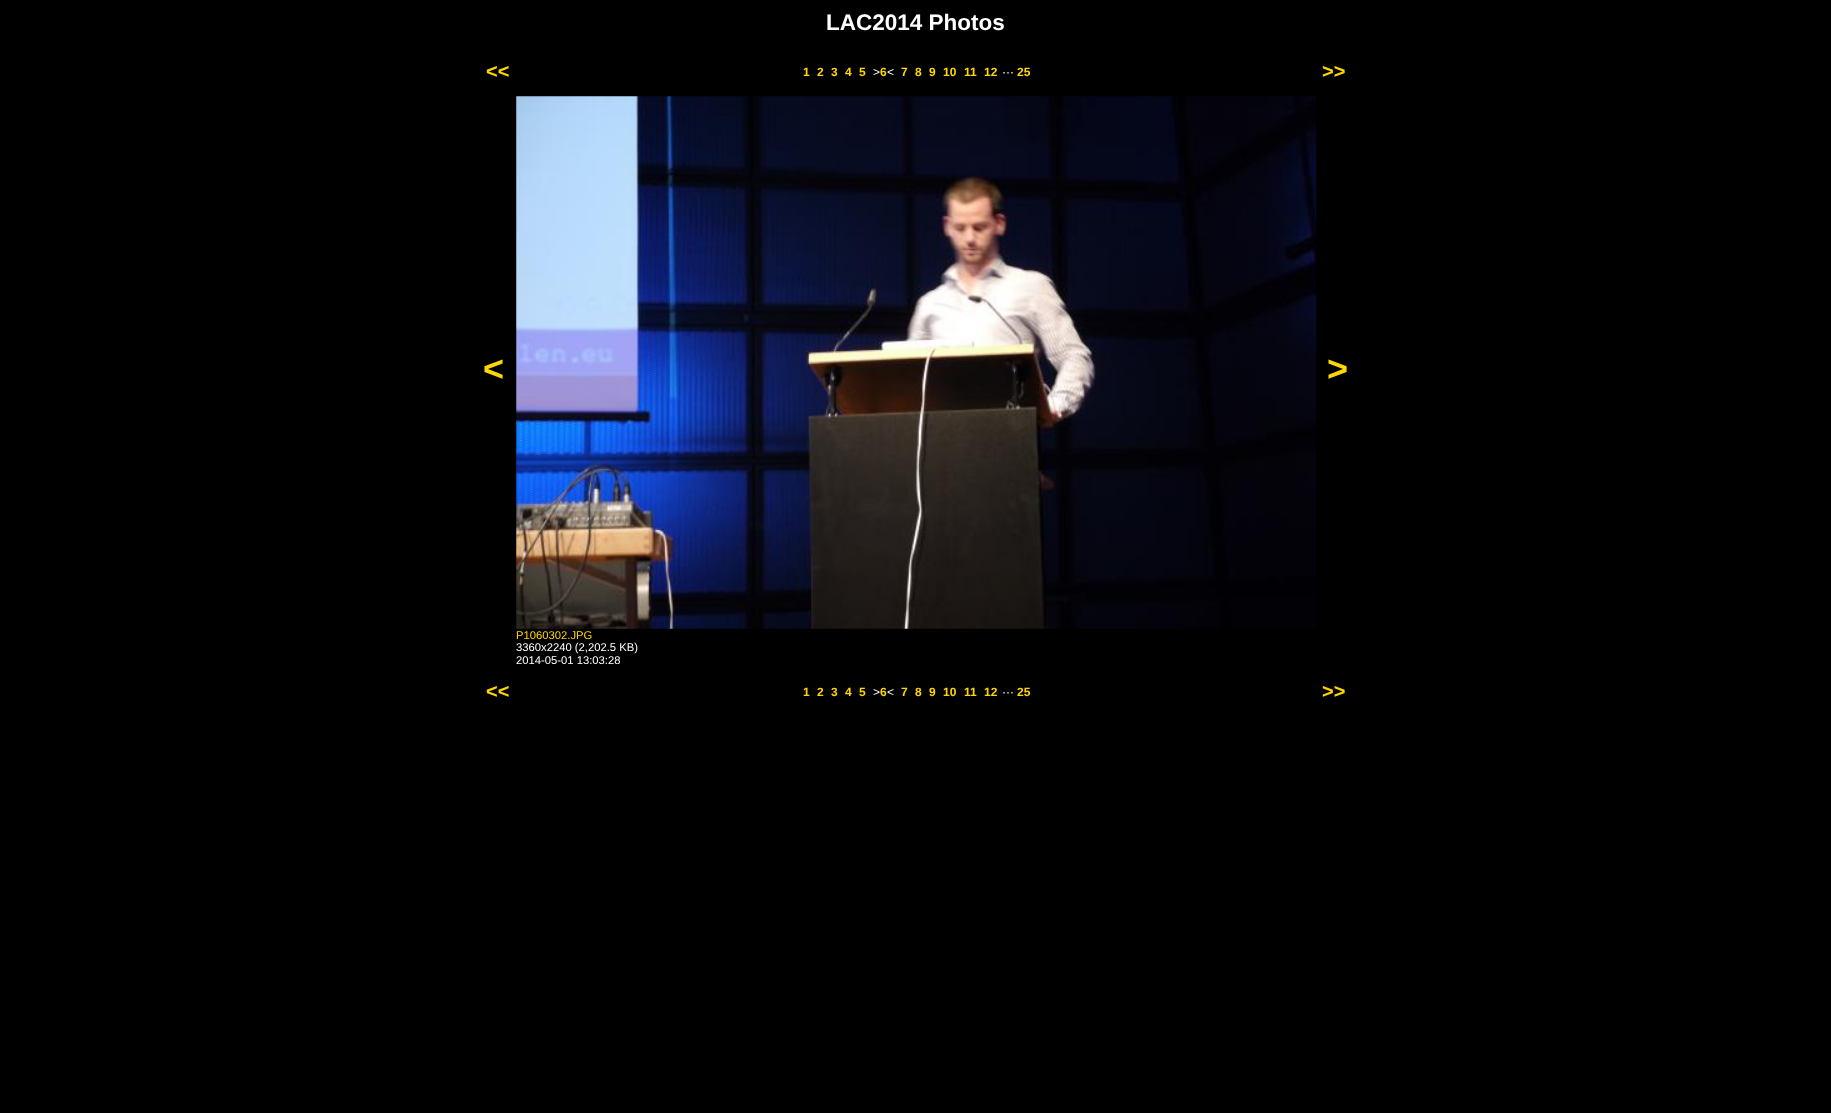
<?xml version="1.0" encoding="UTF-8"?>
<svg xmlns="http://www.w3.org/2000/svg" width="1831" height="1113">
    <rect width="100%" height="100%" fill="#000000"/>
    <text x="826" y="30" font-family="Liberation Sans" font-size="22.5" font-weight="700" fill="#FFFFFF">LAC2014 Photos</text>
    <text x="486" y="78" font-family="Liberation Sans" font-size="20" font-weight="700" fill="#FFD700">&lt;&lt;</text>
    <text x="803" y="76" font-family="Liberation Sans" font-size="12" font-weight="700" fill="#FFD700">1</text>
    <text x="817" y="76" font-family="Liberation Sans" font-size="12" font-weight="700" fill="#FFD700">2</text>
    <text x="831" y="76" font-family="Liberation Sans" font-size="12" font-weight="700" fill="#FFD700">3</text>
    <text x="845" y="76" font-family="Liberation Sans" font-size="12" font-weight="700" fill="#FFD700">4</text>
    <text x="859" y="76" font-family="Liberation Sans" font-size="12" font-weight="700" fill="#FFD700">5</text>
    <text x="873" y="76" font-family="Liberation Sans" font-size="12" fill="#FFFFFF">&gt;</text>
    <text x="880" y="76" font-family="Liberation Sans" font-size="12" font-weight="700" fill="#FFD700">6</text>
    <text x="887" y="76" font-family="Liberation Sans" font-size="12" fill="#FFFFFF">&lt;</text>
    <text x="901" y="76" font-family="Liberation Sans" font-size="12" font-weight="700" fill="#FFD700">7</text>
    <text x="915" y="76" font-family="Liberation Sans" font-size="12" font-weight="700" fill="#FFD700">8</text>
    <text x="929" y="76" font-family="Liberation Sans" font-size="12" font-weight="700" fill="#FFD700">9</text>
    <text x="943" y="76" font-family="Liberation Sans" font-size="12" font-weight="700" fill="#FFD700">10</text>
    <text x="964" y="76" font-family="Liberation Sans" font-size="12" font-weight="700" fill="#FFD700">11</text>
    <text x="984" y="76" font-family="Liberation Sans" font-size="12" font-weight="700" fill="#FFD700">12</text>
    <text x="1002" y="76" font-family="Liberation Sans" font-size="12" fill="#FFFFFF">···</text>
    <text x="1017" y="76" font-family="Liberation Sans" font-size="12" font-weight="700" fill="#FFD700">25</text>
    <text x="1322" y="78" font-family="Liberation Sans" font-size="20" font-weight="700" fill="#FFD700">&gt;&gt;</text>
    <text x="483" y="381" font-family="Liberation Sans" font-size="36" font-weight="700" fill="#FFD700">&lt;</text>
    <text x="1327" y="381" font-family="Liberation Sans" font-size="36" font-weight="700" fill="#FFD700">&gt;</text>
    <image x="516" y="96" width="801" height="533" href="img_01.png"/>
    <text x="516" y="639" font-family="Liberation Sans" font-size="11.25" fill="#FFD700">P1060302.JPG</text>
    <text font-family="Liberation Sans" font-size="11.25" fill="#FFFFFF">
        <tspan x="516" y="651">3360x2240 (2,202.5 KB)</tspan>
        <tspan x="516" y="664">2014-05-01 13:03:28</tspan>
    </text>
    <text x="486" y="698" font-family="Liberation Sans" font-size="20" font-weight="700" fill="#FFD700">&lt;&lt;</text>
    <text x="803" y="696" font-family="Liberation Sans" font-size="12" font-weight="700" fill="#FFD700">1</text>
    <text x="817" y="696" font-family="Liberation Sans" font-size="12" font-weight="700" fill="#FFD700">2</text>
    <text x="831" y="696" font-family="Liberation Sans" font-size="12" font-weight="700" fill="#FFD700">3</text>
    <text x="845" y="696" font-family="Liberation Sans" font-size="12" font-weight="700" fill="#FFD700">4</text>
    <text x="859" y="696" font-family="Liberation Sans" font-size="12" font-weight="700" fill="#FFD700">5</text>
    <text x="873" y="696" font-family="Liberation Sans" font-size="12" fill="#FFFFFF">&gt;</text>
    <text x="880" y="696" font-family="Liberation Sans" font-size="12" font-weight="700" fill="#FFD700">6</text>
    <text x="887" y="696" font-family="Liberation Sans" font-size="12" fill="#FFFFFF">&lt;</text>
    <text x="901" y="696" font-family="Liberation Sans" font-size="12" font-weight="700" fill="#FFD700">7</text>
    <text x="915" y="696" font-family="Liberation Sans" font-size="12" font-weight="700" fill="#FFD700">8</text>
    <text x="929" y="696" font-family="Liberation Sans" font-size="12" font-weight="700" fill="#FFD700">9</text>
    <text x="943" y="696" font-family="Liberation Sans" font-size="12" font-weight="700" fill="#FFD700">10</text>
    <text x="964" y="696" font-family="Liberation Sans" font-size="12" font-weight="700" fill="#FFD700">11</text>
    <text x="984" y="696" font-family="Liberation Sans" font-size="12" font-weight="700" fill="#FFD700">12</text>
    <text x="1002" y="696" font-family="Liberation Sans" font-size="12" fill="#FFFFFF">···</text>
    <text x="1017" y="696" font-family="Liberation Sans" font-size="12" font-weight="700" fill="#FFD700">25</text>
    <text x="1322" y="698" font-family="Liberation Sans" font-size="20" font-weight="700" fill="#FFD700">&gt;&gt;</text>
</svg>
